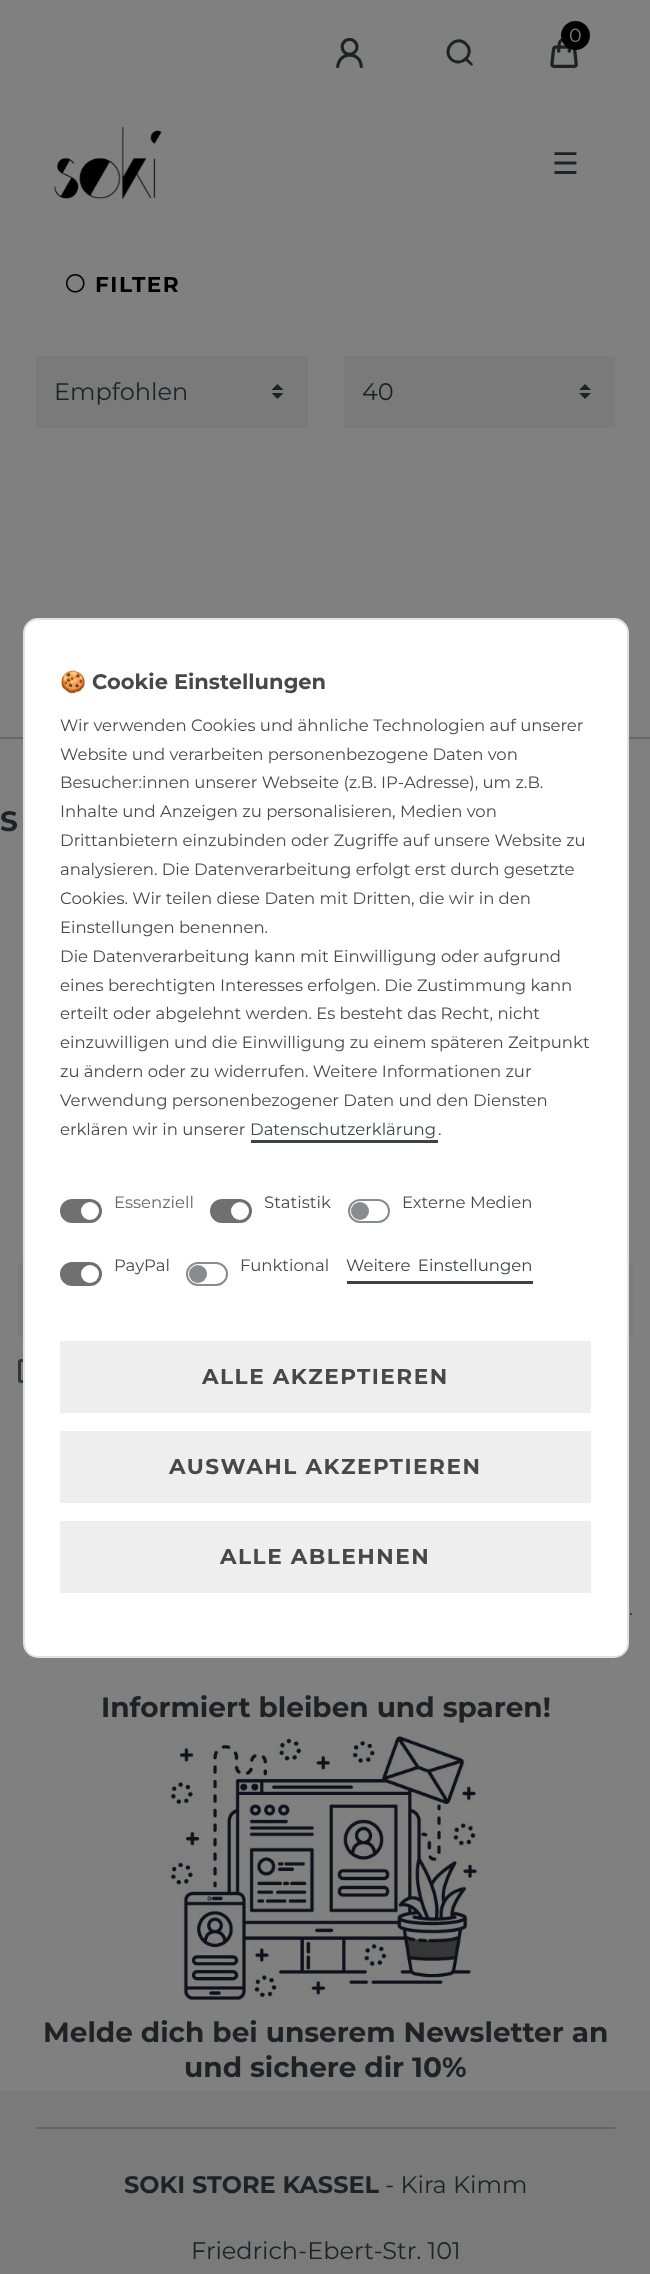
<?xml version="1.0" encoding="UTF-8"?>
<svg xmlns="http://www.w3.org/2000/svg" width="650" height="2274">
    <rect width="100%" height="100%" fill="#808080"/>
    <image x="550" y="38" width="28" height="30" href="img_01.png"/>
    <circle cx="575.5" cy="35.5" r="14.5" fill="#000000"/>
    <text x="569" y="42" font-family="Montserrat" font-size="19" fill="#808080">0</text>
    <image x="336" y="37" width="27" height="31" href="img_02.png"/>
    <path d="M 470.5 65 L 466.5 61.5 C 466 61 463.5 59 465 57.5 H 466.5 L 472.5 63.5 C 473.5 65 471.5 66.5 470.5 65 Z" fill="#1F2223"/>
    <path d="M 451 59 C 441.5 49 456.5 34 466 44 C 476 53.5 461 68.5 451 59 Z" fill="none" stroke="#1F2223" stroke-width="3"/>
    <image x="54" y="126" width="108" height="74" href="img_03.png"/>
    <text x="552" y="174" font-family="DejaVu Sans" font-size="30" fill="#1F2223">☰</text>
    <image x="66" y="274" width="19" height="19" href="img_04.png"/>
    <text x="95" y="292" font-family="Montserrat" font-size="21.6" font-weight="700" letter-spacing="1.5" fill="#000000">FILTER</text>
    <rect x="36" y="356" width="272" height="72" fill="#7A7A7B"/>
    <image x="272" y="384" width="12" height="15" href="img_05.png"/>
    <text x="54" y="400" font-family="Montserrat" font-size="24" fill="#1F2223">Empfohlen</text>
    <rect x="344" y="356" width="271" height="72" fill="#7A7A7B"/>
    <image x="579" y="384" width="12" height="15" href="img_06.png"/>
    <text x="362" y="400" font-family="Montserrat" font-size="24" fill="#1F2223">40</text>
    <rect x="0" y="2091" width="650" height="183" fill="#7A7A7B"/>
    <rect x="0" y="737" width="650" height="2" fill="#656768"/>
    <rect x="18" y="1263" width="615" height="74" fill="#7A7A7B"/>
    <rect x="19.5" y="1360.5" width="21" height="21" rx="1.5" fill="none" stroke="#313535" stroke-width="3"/>
    <rect x="24" y="619" width="604" height="1038" rx="14" fill="#FFFFFF" stroke="#DEE2E6" stroke-width="2"/>
    <text x="60" y="689" font-family="Noto Color Emoji" font-size="21" font-weight="700" fill="#484848">🍪</text>
    <text x="92" y="689" font-family="Montserrat" font-size="21" font-weight="700" fill="#484848">Cookie Einstellungen</text>
    <text font-family="Montserrat" font-size="16.5" fill="#484848">
        <tspan x="60" y="731">Wir verwenden Cookies und ähnliche Technologien auf unserer</tspan>
        <tspan x="60" y="760">Website und verarbeiten personenbezogene Daten von</tspan>
        <tspan x="60" y="788">Besucher:innen unserer Webseite (z.B. IP-Adresse), um z.B.</tspan>
        <tspan x="60" y="817">Inhalte und Anzeigen zu personalisieren, Medien von</tspan>
        <tspan x="60" y="846">Drittanbietern einzubinden oder Zugriffe auf unsere Website zu</tspan>
        <tspan x="60" y="875">analysieren. Die Datenverarbeitung erfolgt erst durch gesetzte</tspan>
        <tspan x="60" y="904">Cookies. Wir teilen diese Daten mit Dritten, die wir in den</tspan>
        <tspan x="60" y="933">Einstellungen benennen.</tspan>
        <tspan x="60" y="962">Die Datenverarbeitung kann mit Einwilligung oder aufgrund</tspan>
        <tspan x="60" y="991">eines berechtigten Interesses erfolgen. Die Zustimmung kann</tspan>
        <tspan x="60" y="1019">erteilt oder abgelehnt werden. Es besteht das Recht, nicht</tspan>
        <tspan x="60" y="1048">einzuwilligen und die Einwilligung zu einem späteren Zeitpunkt</tspan>
        <tspan x="60" y="1077">zu ändern oder zu widerrufen. Weitere Informationen zur</tspan>
        <tspan x="60" y="1106">Verwendung personenbezogener Daten und den Diensten</tspan>
        <tspan x="60" y="1135">erklären wir in unserer</tspan>
    </text>
    <text x="250" y="1135" font-family="Montserrat" font-size="16.5" fill="#3E4346">Datenschutzerklärung</text>
    <rect x="251" y="1140" width="187" height="3" fill="#3E4346"/>
    <text x="438" y="1135" font-family="Montserrat" font-size="16.5" fill="#484848">.</text>
    <rect x="61" y="1200" width="40" height="22" rx="11" fill="#707070" stroke="#707070" stroke-width="2"/>
    <text x="114" y="1208" font-family="Montserrat" font-size="16.5" fill="#61696A">Essenziell</text>
    <circle cx="90" cy="1211" r="9" fill="#FFFFFF"/>
    <rect x="211" y="1200" width="40" height="22" rx="11" fill="#707070" stroke="#707070" stroke-width="2"/>
    <text x="264" y="1208" font-family="Montserrat" font-size="16.5" fill="#484848">Statistik</text>
    <circle cx="240" cy="1211" r="9" fill="#FFFFFF"/>
    <rect x="349" y="1200" width="40" height="22" rx="11" fill="none" stroke="#878C90" stroke-width="2"/>
    <text x="402" y="1208" font-family="Montserrat" font-size="16.5" fill="#484848">Externe Medien</text>
    <circle cx="360" cy="1211" r="9" fill="#878C90"/>
    <rect x="61" y="1263" width="40" height="22" rx="11" fill="#707070" stroke="#707070" stroke-width="2"/>
    <text x="114" y="1271" font-family="Montserrat" font-size="16.5" fill="#484848">PayPal</text>
    <circle cx="90" cy="1274" r="9" fill="#FFFFFF"/>
    <rect x="187" y="1263" width="40" height="22" rx="11" fill="none" stroke="#878C90" stroke-width="2"/>
    <text x="240" y="1271" font-family="Montserrat" font-size="16.5" fill="#484848">Funktional</text>
    <circle cx="198" cy="1274" r="9" fill="#878C90"/>
    <rect x="347" y="1281" width="186" height="3" fill="#3E4346"/>
    <text x="346" y="1271" word-spacing="3" font-family="Montserrat" font-size="16.5" fill="#3E4346">Weitere Einstellungen</text>
    <rect x="60" y="1341" width="531" height="72" fill="#EEEEEE"/>
    <text x="202" y="1384" font-family="Montserrat" font-size="21.6" font-weight="700" letter-spacing="1.5" fill="#484848">ALLE AKZEPTIEREN</text>
    <rect x="60" y="1431" width="531" height="72" fill="#EEEEEE"/>
    <text x="169" y="1474" font-family="Montserrat" font-size="21.6" font-weight="700" letter-spacing="1.5" fill="#484848">AUSWAHL AKZEPTIEREN</text>
    <rect x="60" y="1521" width="531" height="72" fill="#EEEEEE"/>
    <text x="220" y="1564" font-family="Montserrat" font-size="21.6" font-weight="700" letter-spacing="1.5" fill="#484848">ALLE ABLEHNEN</text>
    <text x="0" y="831" font-family="Montserrat" font-size="28" font-weight="700" fill="#1F2223">S</text>
    <text x="629" y="1615" font-family="Montserrat" font-size="18" fill="#1F2223">.</text>
    <text x="101" y="1717" font-family="Montserrat" font-size="28" font-weight="700" fill="#1F2223">Informiert bleiben und sparen!</text>
    <image x="168" y="1736" width="312" height="266" href="img_07.png"/>
    <text x="43" y="2042" font-family="Montserrat" font-size="28" font-weight="700" fill="#1F2223">Melde dich bei unserem Newsletter an</text>
    <text x="184" y="2077" font-family="Montserrat" font-size="28" font-weight="700" fill="#1F2223">und sichere dir 10%</text>
    <rect x="36" y="2127" width="579" height="2" fill="#656768"/>
    <text x="124" y="2193" font-family="Montserrat" font-size="24" font-weight="700" fill="#1F2223">SOKI STORE KASSEL</text>
    <text x="385" y="2193" font-family="Montserrat" font-size="24" fill="#1F2223">- Kira Kimm</text>
    <text x="191" y="2259" font-family="Montserrat" font-size="24" fill="#1F2223">Friedrich-Ebert-Str. 101</text>
</svg>
